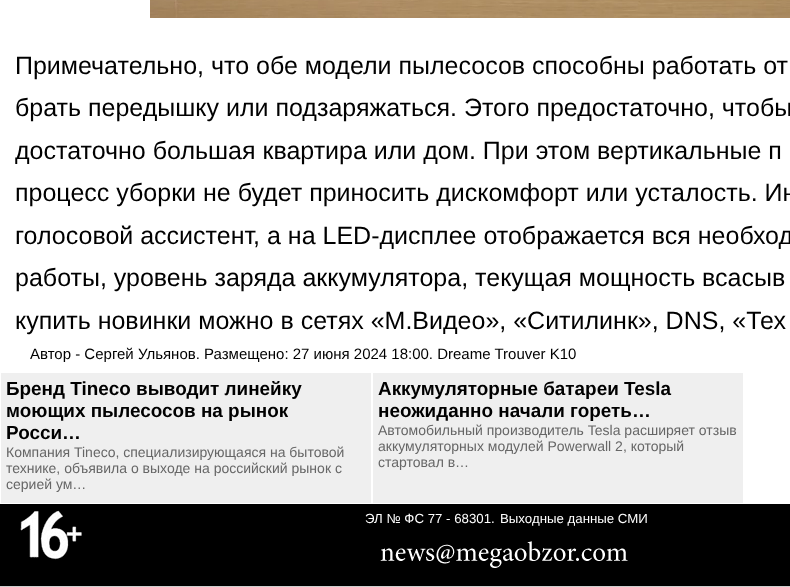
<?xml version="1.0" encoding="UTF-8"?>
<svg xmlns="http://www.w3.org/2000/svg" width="790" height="587">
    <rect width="100%" height="100%" fill="#FFFFFF"/>
    <rect x="0" y="586" width="790" height="1" fill="#CFCFCF"/>
    <image x="150" y="0" width="640" height="18" href="img_01.png"/>
    <text font-family="Liberation Sans" font-size="25" fill="#000000">
        <tspan x="15" y="74">Примечательно, что обе модели пылесосов способны работать от</tspan>
        <tspan x="15" y="116">брать передышку или подзаряжаться. Этого предостаточно, чтобы</tspan>
        <tspan x="15" y="159">достаточно большая квартира или дом. При этом вертикальные п</tspan>
        <tspan x="15" y="201">процесс уборки не будет приносить дискомфорт или усталость. Ин</tspan>
        <tspan x="15" y="244">голосовой ассистент, а на LED-дисплее отображается вся необход</tspan>
        <tspan x="15" y="286">работы, уровень заряда аккумулятора, текущая мощность всасыв</tspan>
        <tspan x="15" y="329">купить новинки можно в сетях «М.Видео», «Ситилинк», DNS, «Тех</tspan>
    </text>
    <text x="30" y="359" font-family="Liberation Sans" font-size="15" fill="#000000">Автор - Сергей Ульянов. Размещено: 27 июня 2024 18:00. Dreame Trouver K10</text>
    <rect x="1" y="373" width="370" height="130" fill="#EFEFEF"/>
    <text font-family="Liberation Sans" font-size="18.9" font-weight="700" fill="#000000">
        <tspan x="6" y="395">Бренд Tineco выводит линейку</tspan>
        <tspan x="6" y="417">моющих пылесосов на рынок</tspan>
        <tspan x="6" y="439">Росси…</tspan>
    </text>
    <text font-family="Liberation Sans" font-size="14" fill="#666666">
        <tspan x="6" y="457">Компания Tineco, специализирующаяся на бытовой</tspan>
        <tspan x="6" y="473">технике, объявила о выходе на российский рынок с</tspan>
        <tspan x="6" y="489">серией ум…</tspan>
    </text>
    <rect x="373" y="373" width="370" height="130" fill="#EFEFEF"/>
    <text font-family="Liberation Sans" font-size="18.9" font-weight="700" fill="#000000">
        <tspan x="378" y="395">Аккумуляторные батареи Tesla</tspan>
        <tspan x="378" y="417">неожиданно начали гореть…</tspan>
    </text>
    <text font-family="Liberation Sans" font-size="14" fill="#666666">
        <tspan x="378" y="435">Автомобильный производитель Tesla расширяет отзыв</tspan>
        <tspan x="378" y="451">аккумуляторных модулей Powerwall 2, который</tspan>
        <tspan x="378" y="467">стартовал в…</tspan>
    </text>
    <rect x="0" y="504" width="790" height="82" fill="#000000"/>
    <image x="20" y="510" width="62" height="50" href="img_02.png"/>
    <text x="365" y="523" font-family="Liberation Sans" font-size="13.25" fill="#FFFFFF">ЭЛ № ФС 77 - 68301.</text>
    <text x="500" y="523" font-family="Liberation Sans" font-size="13.25" fill="#FFFFFF">Выходные данные СМИ</text>
    <image x="380" y="541" width="248" height="27" href="img_03.png"/>
</svg>
